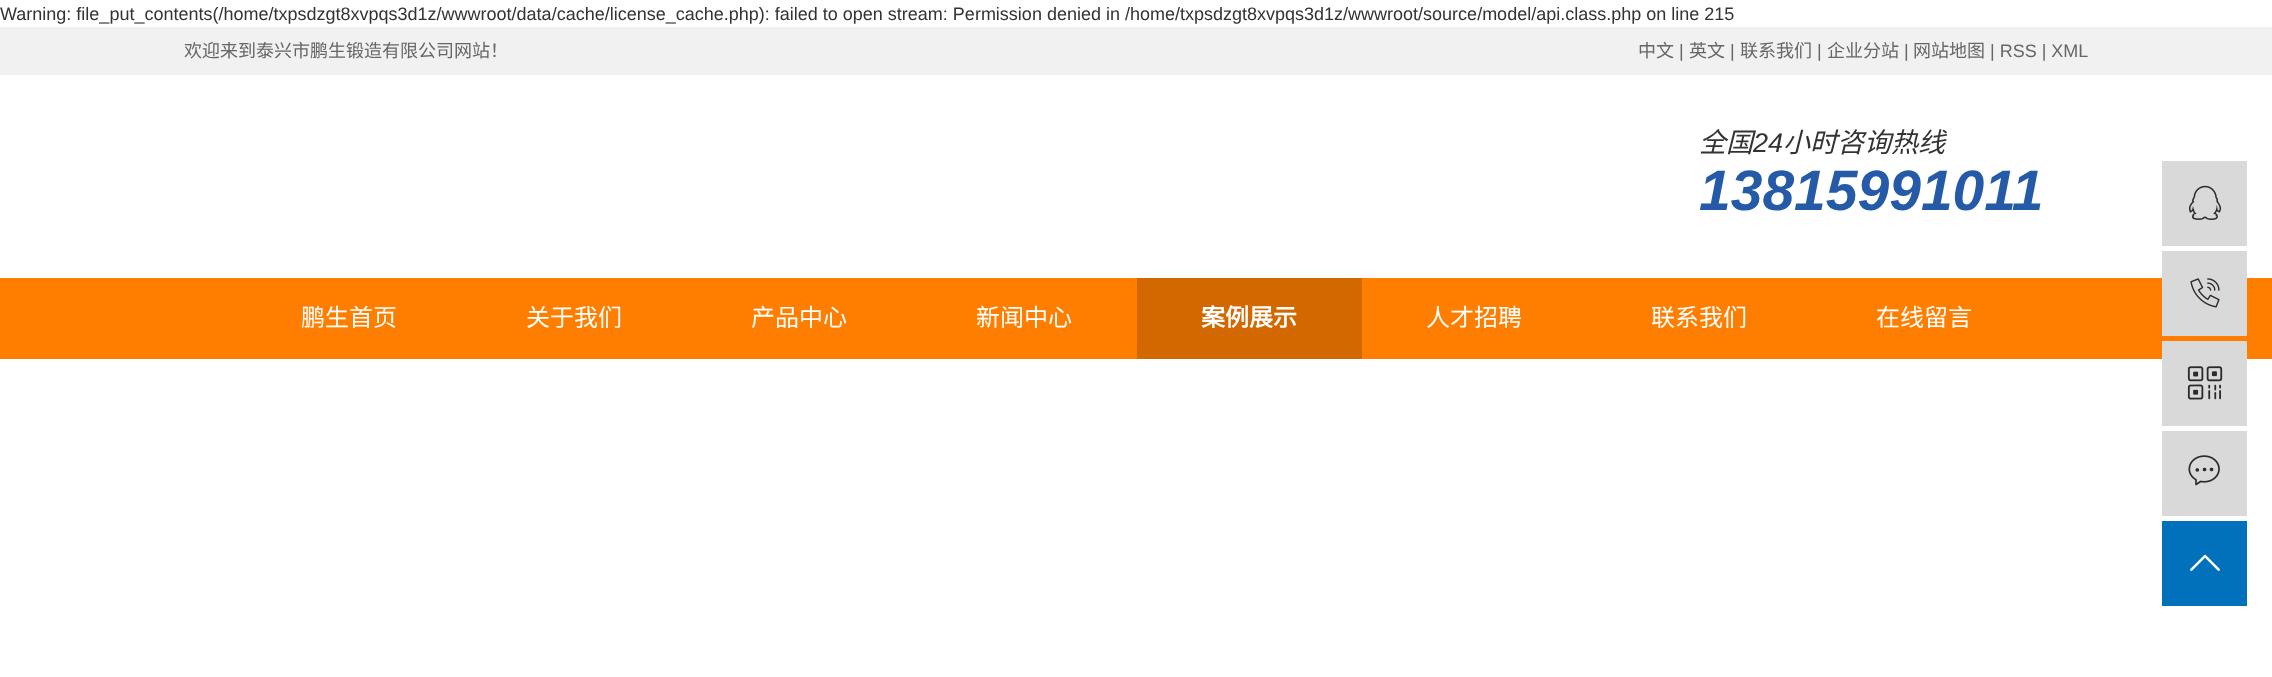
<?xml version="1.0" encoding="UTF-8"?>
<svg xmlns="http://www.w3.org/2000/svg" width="2272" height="677">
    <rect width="100%" height="100%" fill="#FFFFFF"/>
    <text x="0" y="20" font-family="Liberation Sans" font-size="18" fill="#333333">Warning: file_put_contents(/home/txpsdzgt8xvpqs3d1z/wwwroot/data/cache/license_cache.php): failed to open stream: Permission denied in /home/txpsdzgt8xvpqs3d1z/wwwroot/source/model/api.class.php on line 215</text>
    <rect x="0" y="27" width="2272" height="48" fill="#F1F1F1"/>
    <text x="184" y="57" font-family="Noto Sans CJK SC" font-size="18" fill="#666666">欢迎来到泰兴市鹏生锻造有限公司网站！</text>
    <text x="1638" y="57" font-family="Noto Sans CJK SC" font-size="18" fill="#666666">中文</text>
    <text x="1679" y="57" font-family="Liberation Sans" font-size="18" fill="#666666">|</text>
    <text x="1689" y="57" font-family="Noto Sans CJK SC" font-size="18" fill="#666666">英文</text>
    <text x="1730" y="57" font-family="Liberation Sans" font-size="18" fill="#666666">|</text>
    <text x="1740" y="57" font-family="Noto Sans CJK SC" font-size="18" fill="#666666">联系我们</text>
    <text x="1817" y="57" font-family="Liberation Sans" font-size="18" fill="#666666">|</text>
    <text x="1827" y="57" font-family="Noto Sans CJK SC" font-size="18" fill="#666666">企业分站</text>
    <text x="1904" y="57" font-family="Liberation Sans" font-size="18" fill="#666666">|</text>
    <text x="1913" y="57" font-family="Noto Sans CJK SC" font-size="18" fill="#666666">网站地图</text>
    <text x="1990" y="57" font-family="Liberation Sans" font-size="18" fill="#666666">| RSS | XML</text>
    <text x="1699" y="152" font-family="Noto Sans CJK SC" font-size="27" font-style="italic" fill="#333333">全国</text>
    <text x="1753" y="152" font-family="Liberation Sans" font-size="27" font-style="italic" fill="#333333">24</text>
    <text x="1783" y="152" font-family="Noto Sans CJK SC" font-size="27" font-style="italic" fill="#333333">小时咨询热线</text>
    <text x="1699" y="210" font-family="Liberation Sans" font-size="57" font-weight="700" font-style="italic" fill="#245AA7">13815991011</text>
    <rect x="2162" y="161" width="85" height="85" fill="#D9D9D9"/>
    <image x="2189" y="185" width="33" height="35" href="img_01.png"/>
    <rect x="0" y="278" width="2272" height="81" fill="#FF7E00"/>
    <rect x="2162" y="251" width="85" height="85" fill="#D9D9D9"/>
    <image x="2190" y="278" width="30" height="30" href="img_02.png"/>
    <rect x="2162" y="341" width="85" height="85" fill="#D9D9D9"/>
    <image x="2187" y="366" width="36" height="34" href="img_03.png"/>
    <rect x="2162" y="431" width="85" height="85" fill="#D9D9D9"/>
    <image x="2188" y="455" width="32" height="31" href="img_04.png"/>
    <rect x="2162" y="521" width="85" height="85" fill="#0171BC"/>
    <image x="2190" y="554" width="30" height="17" href="img_05.png"/>
    <text x="301" y="326" font-family="Noto Sans CJK SC" font-size="24" fill="#FFFFFF">鹏生首页</text>
    <text x="526" y="326" font-family="Noto Sans CJK SC" font-size="24" fill="#FFFFFF">关于我们</text>
    <text x="751" y="326" font-family="Noto Sans CJK SC" font-size="24" fill="#FFFFFF">产品中心</text>
    <text x="976" y="326" font-family="Noto Sans CJK SC" font-size="24" fill="#FFFFFF">新闻中心</text>
    <rect x="1137" y="278" width="225" height="81" fill="#D36800"/>
    <text x="1201" y="326" font-family="Noto Sans CJK SC" font-size="24" font-weight="700" fill="#FFFFFF">案例展示</text>
    <text x="1426" y="326" font-family="Noto Sans CJK SC" font-size="24" fill="#FFFFFF">人才招聘</text>
    <text x="1651" y="326" font-family="Noto Sans CJK SC" font-size="24" fill="#FFFFFF">联系我们</text>
    <text x="1876" y="326" font-family="Noto Sans CJK SC" font-size="24" fill="#FFFFFF">在线留言</text>
</svg>
